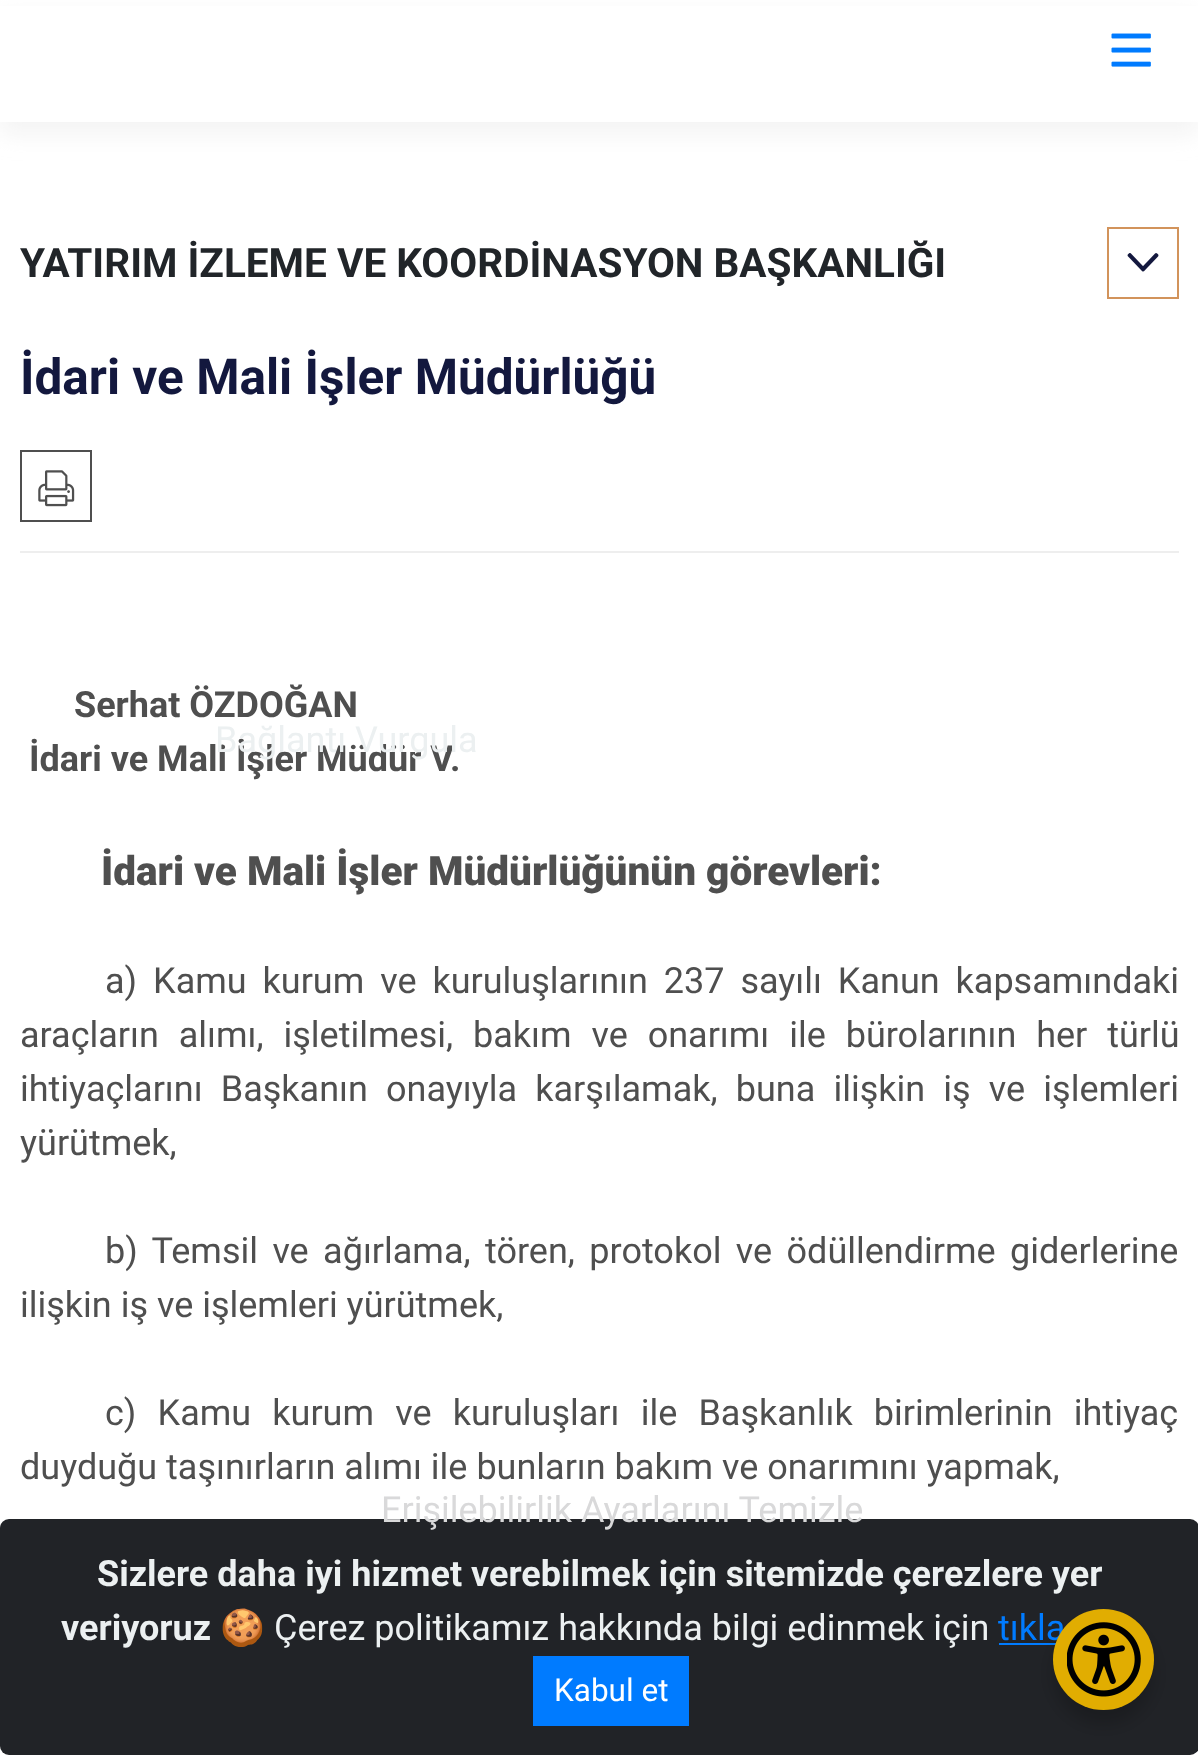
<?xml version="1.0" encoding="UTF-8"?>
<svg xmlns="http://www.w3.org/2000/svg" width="1198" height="1755">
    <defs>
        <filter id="blur1" x="-50%" y="-200%" width="200%" height="500%"><feGaussianBlur stdDeviation="11"/></filter>
        <filter id="blur2" x="-50%" y="-200%" width="200%" height="500%"><feGaussianBlur stdDeviation="9"/></filter>
    </defs>
    <rect width="100%" height="100%" fill="#FFFFFF"/>
    <rect x="0" y="14" width="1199" height="121" fill="#EEEEEE" fill-opacity="0.62" filter="url(#blur1)"/>
    <rect x="0" y="6" width="1198" height="116" fill="#FFFFFF"/>
    <image x="1111" y="33" width="40" height="34" href="img_01.png"/>
    <text x="20" y="277" font-family="Roboto" font-size="40.5" font-weight="700" fill="#212529">YATIRIM İZLEME VE KOORDİNASYON BAŞKANLIĞI</text>
    <rect x="1108" y="228" width="70" height="70" fill="none" stroke="#D2935B" stroke-width="2"/>
    <image x="1127" y="253" width="32" height="19" href="img_02.png"/>
    <rect x="20" y="551" width="1159" height="2" fill="#EEEEEE"/>
    <text x="20" y="394" font-family="Roboto" font-size="49.5" font-weight="700" fill="#13183E">İdari ve Mali İşler Müdürlüğü</text>
    <rect x="21" y="451" width="70" height="70" fill="none" stroke="#4F4F4F" stroke-width="2"/>
    <image x="38" y="470" width="37" height="37" href="img_03.png"/>
    <text x="74" y="717" font-family="Roboto" font-size="36" font-weight="700" fill="#4F4F4F">Serhat ÖZDOĞAN</text>
    <text x="29" y="771" font-family="Roboto" font-size="36" font-weight="700" fill="#4F4F4F">İdari ve Mali İşler Müdür V.</text>
    <text x="101" y="885" font-family="Roboto" font-size="40.5" font-weight="900" fill="#4F4F4F">İdari ve Mali İşler Müdürlüğünün görevleri:</text>
    <text x="105" y="993" word-spacing="7" font-family="Roboto" font-size="36" fill="#4F4F4F">a) Kamu kurum ve kuruluşlarının 237 sayılı Kanun kapsamındaki</text>
    <text font-family="Roboto" font-size="36" fill="#4F4F4F">
        <tspan x="20" y="1047" word-spacing="11">araçların alımı, işletilmesi, bakım ve onarımı ile bürolarının her türlü</tspan>
        <tspan x="20" y="1101" word-spacing="9.25">ihtiyaçlarını Başkanın onayıyla karşılamak, buna ilişkin iş ve işlemleri</tspan>
        <tspan x="20" y="1155">yürütmek,</tspan>
    </text>
    <text x="105" y="1263" word-spacing="5.5" font-family="Roboto" font-size="36" fill="#4F4F4F">b) Temsil ve ağırlama, tören, protokol ve ödüllendirme giderlerine</text>
    <text x="20" y="1317" font-family="Roboto" font-size="36" fill="#4F4F4F">ilişkin iş ve işlemleri yürütmek,</text>
    <text x="105" y="1425" word-spacing="12.25" font-family="Roboto" font-size="36" fill="#4F4F4F">c) Kamu kurum ve kuruluşları ile Başkanlık birimlerinin ihtiyaç</text>
    <text x="20" y="1479" font-family="Roboto" font-size="36" fill="#4F4F4F">duyduğu taşınırların alımı ile bunların bakım ve onarımını yapmak,</text>
    <text x="215" y="752" font-family="Roboto" font-size="36" fill="#ECF0F1">Bağlantı Vurgula</text>
    <rect x="0" y="1519" width="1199" height="236" rx="9" fill="#212327"/>
    <text x="381" y="1522" font-family="Roboto" font-size="36" fill="#D9D9DA">Erişilebilirlik Ayarlarını Temizle</text>
    <rect x="999" y="1643" width="57" height="2" fill="#007BFF"/>
    <rect x="1053" y="1622" width="101" height="102" rx="50.5" fill="#000000" fill-opacity="0.2" filter="url(#blur2)"/>
    <text x="998" y="1640" font-family="Roboto" font-size="36" fill="#007BFF">tıkla</text>
    <circle cx="1103.5" cy="1659.5" r="50.5" fill="#E1AD01"/>
    <image x="1067" y="1622" width="74" height="75" href="img_04.png"/>
    <text x="97" y="1586" font-family="Roboto" font-size="36" font-weight="700" fill="#ECF0F1">Sizlere daha iyi hizmet verebilmek için sitemizde çerezlere yer</text>
    <text x="61" y="1640" font-family="Roboto" font-size="36" font-weight="700" fill="#ECF0F1">veriyoruz</text>
    <text x="220" y="1640" font-family="Noto Color Emoji" font-size="36" fill="#ECF0F1">🍪</text>
    <text x="274" y="1640" font-family="Roboto" font-size="36" fill="#ECF0F1">Çerez politikamız hakkında bilgi edinmek için</text>
    <rect x="533" y="1656" width="156" height="70" fill="#007BFF"/>
    <text x="554" y="1701" font-family="Roboto" font-size="31.5" fill="#FFFFFF">Kabul et</text>
</svg>
